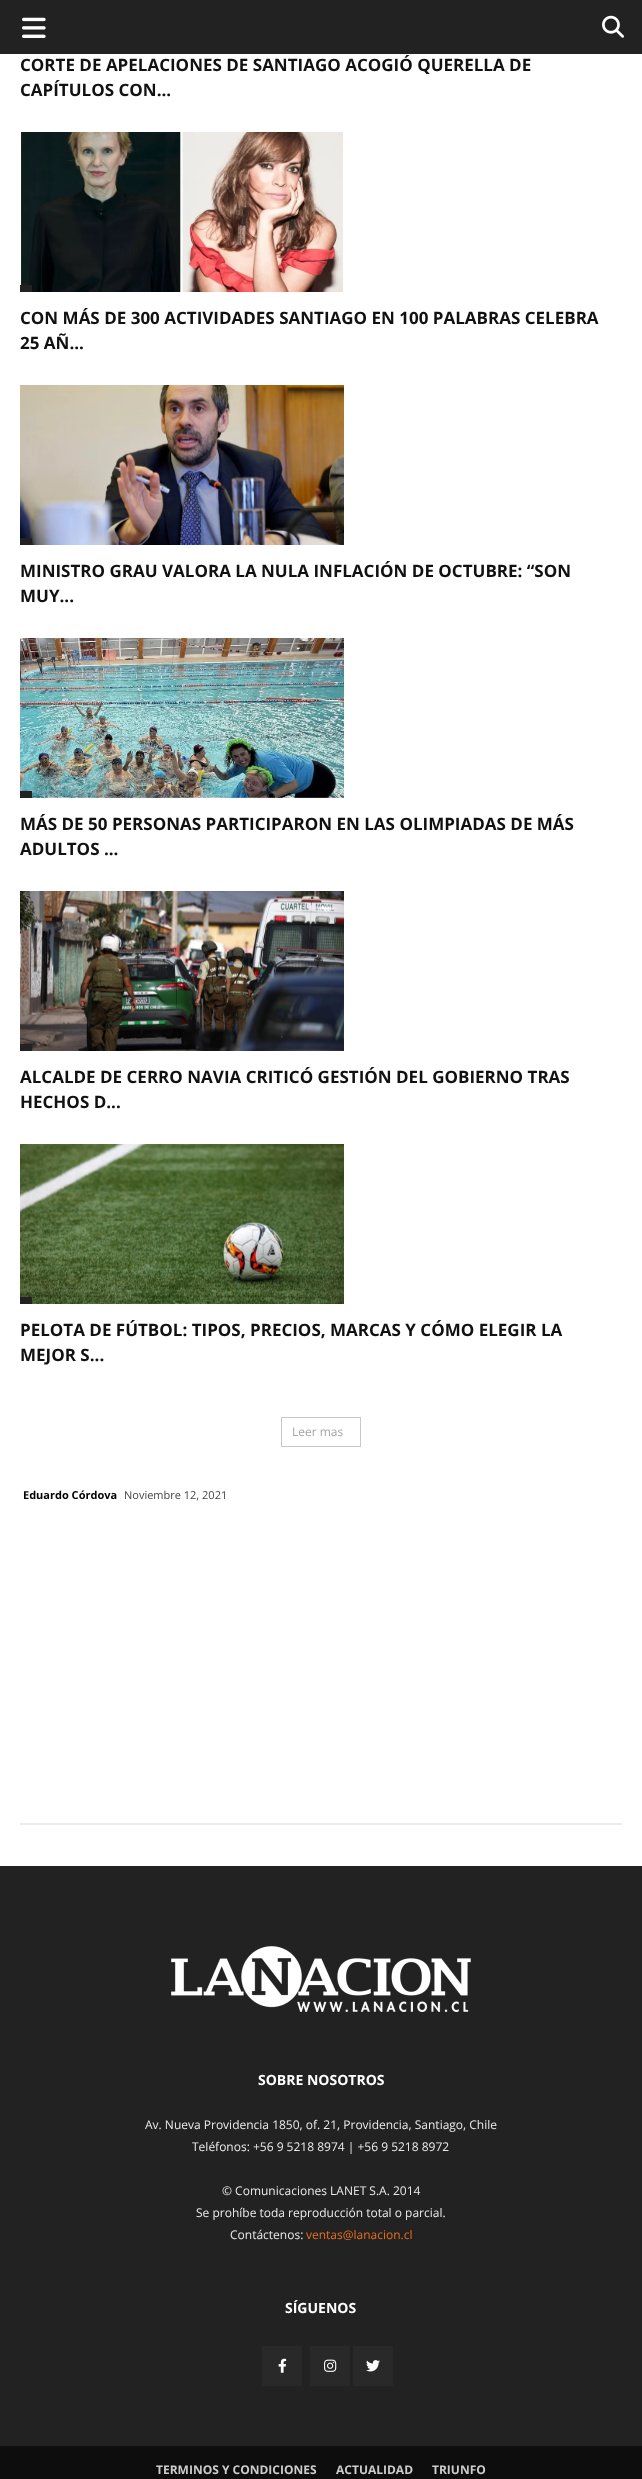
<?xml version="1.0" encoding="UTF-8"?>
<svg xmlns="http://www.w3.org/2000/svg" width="642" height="2479">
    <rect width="100%" height="100%" fill="#FFFFFF"/>
    <rect x="0" y="0" width="642" height="54" fill="#222222"/>
    <image x="22" y="17" width="24" height="21" href="img_01.png"/>
    <image x="602" y="15" width="22" height="23" href="img_02.png"/>
    <text font-family="Open Sans" font-size="17" font-weight="700" fill="#111111">
        <tspan x="20" y="71">CORTE DE APELACIONES DE SANTIAGO ACOGIÓ QUERELLA DE</tspan>
        <tspan x="20" y="96">CAPÍTULOS CON...</tspan>
    </text>
    <image x="21" y="132" width="322" height="160" href="img_03.png"/>
    <rect x="20" y="285" width="12" height="7" fill="#222222"/>
    <text font-family="Open Sans" font-size="17" font-weight="700" fill="#111111">
        <tspan x="20" y="324">CON MÁS DE 300 ACTIVIDADES SANTIAGO EN 100 PALABRAS CELEBRA</tspan>
        <tspan x="20" y="349">25 AÑ...</tspan>
    </text>
    <image x="20" y="385" width="324" height="160" href="img_04.png"/>
    <rect x="20" y="538" width="12" height="7" fill="#222222"/>
    <text font-family="Open Sans" font-size="17" font-weight="700" fill="#111111">
        <tspan x="20" y="577">MINISTRO GRAU VALORA LA NULA INFLACIÓN DE OCTUBRE: “SON</tspan>
        <tspan x="20" y="602">MUY...</tspan>
    </text>
    <image x="20" y="638" width="324" height="160" href="img_05.png"/>
    <rect x="20" y="791" width="12" height="7" fill="#222222"/>
    <text font-family="Open Sans" font-size="17" font-weight="700" fill="#111111">
        <tspan x="20" y="830">MÁS DE 50 PERSONAS PARTICIPARON EN LAS OLIMPIADAS DE MÁS</tspan>
        <tspan x="20" y="855">ADULTOS ...</tspan>
    </text>
    <image x="20" y="891" width="324" height="160" href="img_06.png"/>
    <rect x="20" y="1044" width="12" height="7" fill="#222222"/>
    <text font-family="Open Sans" font-size="17" font-weight="700" fill="#111111">
        <tspan x="20" y="1083">ALCALDE DE CERRO NAVIA CRITICÓ GESTIÓN DEL GOBIERNO TRAS</tspan>
        <tspan x="20" y="1108">HECHOS D...</tspan>
    </text>
    <image x="20" y="1144" width="324" height="160" href="img_07.png"/>
    <rect x="20" y="1297" width="12" height="7" fill="#222222"/>
    <text font-family="Open Sans" font-size="17" font-weight="700" fill="#111111">
        <tspan x="20" y="1336">PELOTA DE FÚTBOL: TIPOS, PRECIOS, MARCAS Y CÓMO ELEGIR LA</tspan>
        <tspan x="20" y="1361">MEJOR S...</tspan>
    </text>
    <rect x="281.5" y="1417.5" width="79" height="29" fill="none" stroke="#C9C9C9"/>
    <text x="292" y="1436" font-family="Open Sans" font-size="12" fill="#A5A5A5">Leer mas</text>
    <text x="23" y="1499" font-family="Open Sans" font-size="11" font-weight="700" fill="#000000">Eduardo Córdova</text>
    <text x="124" y="1499" font-family="Open Sans" font-size="11" fill="#444444">Noviembre 12, 2021</text>
    <rect x="20" y="1823" width="602" height="2" fill="#EBEBEB"/>
    <rect x="0" y="1866" width="642" height="580" fill="#222222"/>
    <image x="171" y="1946" width="300" height="66" href="img_08.png"/>
    <text x="258" y="2085" font-family="Open Sans" font-size="14" font-weight="700" fill="#FFFFFF">SOBRE NOSOTROS</text>
    <text x="145" y="2129" font-family="Open Sans" font-size="12" fill="#EAEAEA">Av. Nueva Providencia 1850, of. 21, Providencia, Santiago, Chile</text>
    <text x="192" y="2151" font-family="Open Sans" font-size="12" fill="#EAEAEA">Teléfonos: +56 9 5218 8974 | +56 9 5218 8972</text>
    <text x="222" y="2195" font-family="Open Sans" font-size="12" fill="#EAEAEA">© Comunicaciones LANET S.A. 2014</text>
    <text x="196" y="2217" font-family="Open Sans" font-size="12" fill="#EAEAEA">Se prohíbe toda reproducción total o parcial.</text>
    <text x="230" y="2239" font-family="Open Sans" font-size="12" fill="#EAEAEA">Contáctenos:</text>
    <text x="306" y="2239" font-family="Open Sans" font-size="12" fill="#EA6E1C">ventas@lanacion.cl</text>
    <text x="285" y="2313" font-family="Open Sans" font-size="14" font-weight="700" fill="#FFFFFF">SÍGUENOS</text>
    <rect x="262" y="2346" width="40" height="40" fill="#292929"/>
    <image x="278" y="2358" width="9" height="15" href="img_09.png"/>
    <rect x="310" y="2346" width="40" height="40" fill="#292929"/>
    <image x="324" y="2359" width="13" height="13" href="img_10.png"/>
    <rect x="353" y="2346" width="40" height="40" fill="#292929"/>
    <image x="366" y="2360" width="14" height="12" href="img_11.png"/>
    <rect x="0" y="2446" width="642" height="33" fill="#0D0D0D"/>
    <text x="156" y="2474" font-family="Open Sans" font-size="12" font-weight="700" fill="#CCCCCC">TERMINOS Y CONDICIONES</text>
    <text x="336" y="2474" font-family="Open Sans" font-size="12" font-weight="700" fill="#CCCCCC">ACTUALIDAD</text>
    <text x="432" y="2474" font-family="Open Sans" font-size="12" font-weight="700" fill="#CCCCCC">TRIUNFO</text>
</svg>
